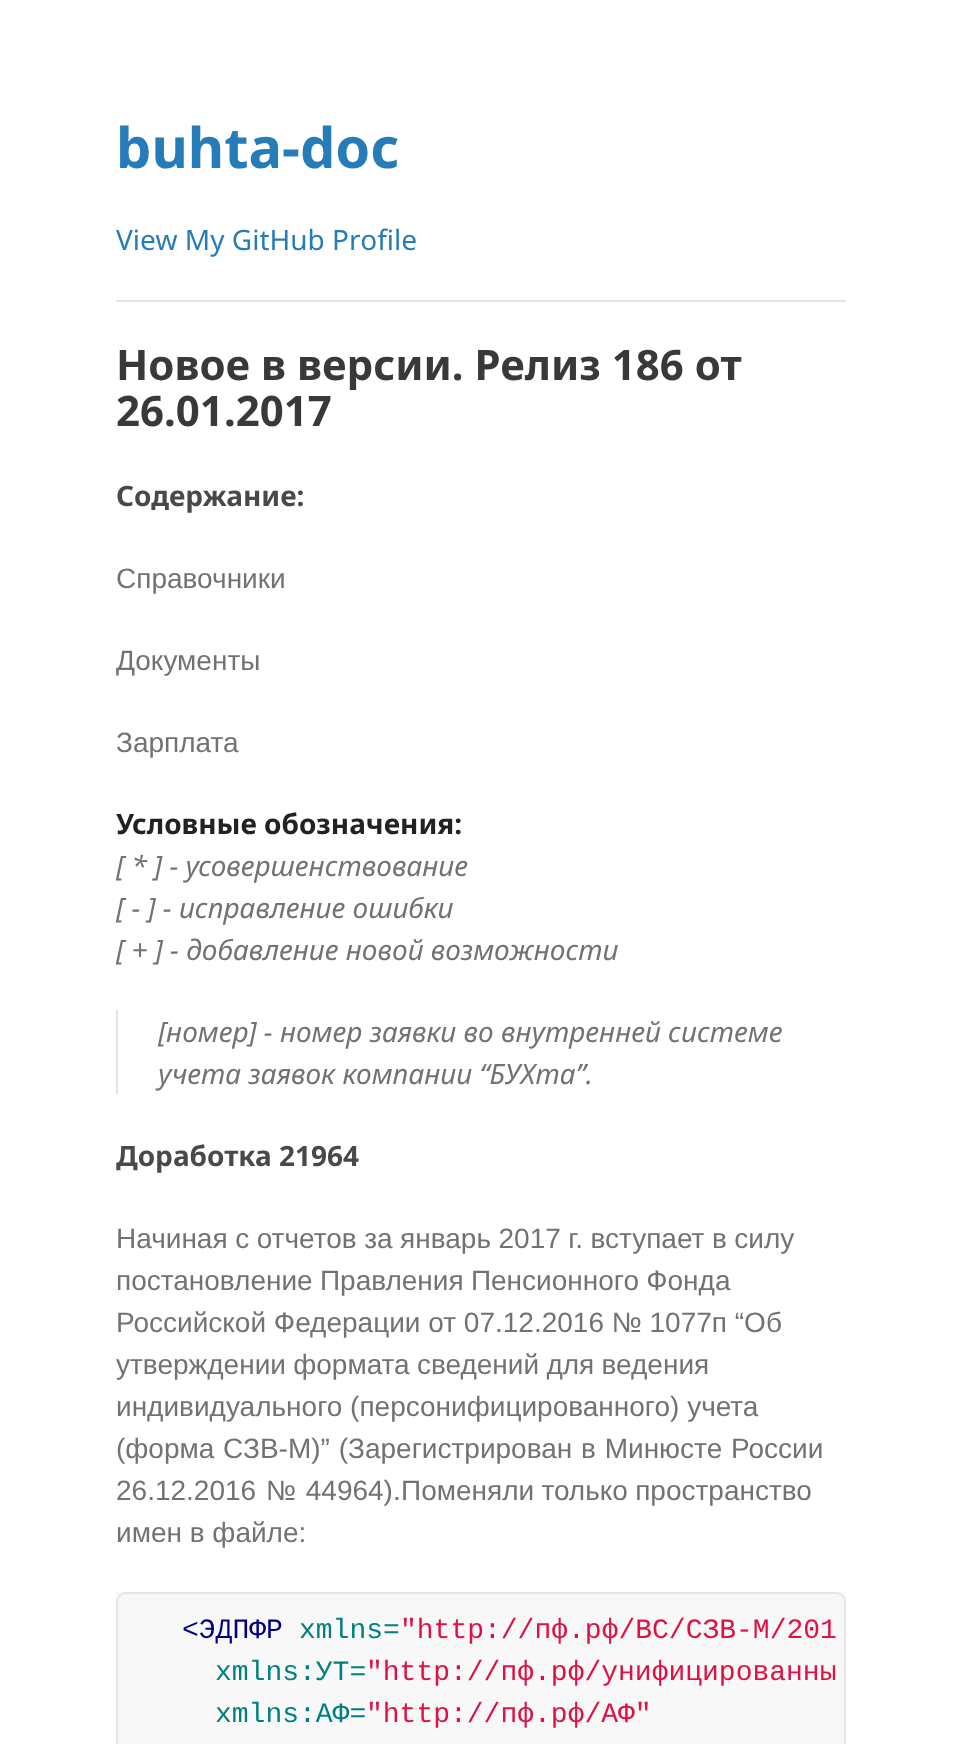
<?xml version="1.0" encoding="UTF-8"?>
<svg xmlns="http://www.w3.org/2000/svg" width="962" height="1744">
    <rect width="100%" height="100%" fill="#FFFFFF"/>
    <text x="116" y="168" font-family="Noto Sans" font-size="56" font-weight="700" fill="#267CB9">buhta-doc</text>
    <text x="116" y="250" font-family="Noto Sans" font-size="28" fill="#267CB9">View My GitHub Profile</text>
    <rect x="116" y="300" width="730" height="2" fill="#E5E5E5"/>
    <text font-family="Noto Sans" font-size="42" font-weight="700" fill="#393939">
        <tspan x="116" y="380">Новое в версии. Релиз 186 от</tspan>
        <tspan x="116" y="426">26.01.2017</tspan>
    </text>
    <text x="116" y="506" font-family="Noto Sans" font-size="28" font-weight="700" fill="#494949">Содержание:</text>
    <text x="116" y="588" font-family="Liberation Sans" font-size="28" fill="#727272">Справочники</text>
    <text x="116" y="670" font-family="Liberation Sans" font-size="28" fill="#727272">Документы</text>
    <text x="116" y="752" font-family="Liberation Sans" font-size="28" fill="#727272">Зарплата</text>
    <text x="116" y="834" font-family="Noto Sans" font-size="28" font-weight="700" fill="#222222">Условные обозначения:</text>
    <text font-family="Noto Sans" font-size="28" font-style="italic" fill="#727272">
        <tspan x="116" y="876">[ * ] - усовершенствование</tspan>
        <tspan x="116" y="918">[ - ] - исправление ошибки</tspan>
        <tspan x="116" y="960">[ + ] - добавление новой возможности</tspan>
    </text>
    <rect x="116" y="1010" width="2" height="84" fill="#E5E5E5"/>
    <text font-family="Noto Sans" font-size="28" font-style="italic" fill="#727272">
        <tspan x="158" y="1042">[номер] - номер заявки во внутренней системе</tspan>
        <tspan x="158" y="1084">учета заявок компании “БУХта”.</tspan>
    </text>
    <text x="116" y="1166" font-family="Noto Sans" font-size="28" font-weight="700" fill="#494949">Доработка 21964</text>
    <text font-family="Liberation Sans" font-size="28" fill="#727272">
        <tspan x="116" y="1248" word-spacing="-0.25">Начиная с отчетов за январь 2017 г. вступает в силу</tspan>
        <tspan x="116" y="1290" word-spacing="-0.5">постановление Правления Пенсионного Фонда</tspan>
        <tspan x="116" y="1332">Российской Федерации от 07.12.2016 № 1077п “Об</tspan>
        <tspan x="116" y="1374" word-spacing="-0.5">утверждении формата сведений для ведения</tspan>
        <tspan x="116" y="1416">индивидуального (персонифицированного) учета</tspan>
        <tspan x="116" y="1458" word-spacing="1">(форма СЗВ-М)” (Зарегистрирован в Минюсте России</tspan>
        <tspan x="116" y="1500" word-spacing="2">26.12.2016 № 44964).</tspan>
    </text>
    <text x="401" y="1500" word-spacing="-0.5" font-family="Liberation Sans" font-size="28" fill="#727272">Поменяли только пространство</text>
    <text x="116" y="1542" font-family="Liberation Sans" font-size="28" fill="#727272">имен в файле:</text>
    <rect x="116" y="1592" width="730" height="152" fill="#F8F8F8"/>
    <rect x="117" y="1593" width="728" height="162" rx="9" fill="none" stroke="#E5E5E5" stroke-width="2"/>
    <text x="182" y="1638" font-family="Liberation Mono" font-size="28" fill="#000080">&lt;ЭДПФР</text>
    <text x="299" y="1638" font-family="Liberation Mono" font-size="28" fill="#008080">xmlns=</text>
    <text x="400" y="1638" font-family="Liberation Mono" font-size="28" fill="#DD1144">"http://пф.рф/ВС/СЗВ-М/201</text>
    <text x="215" y="1680" font-family="Liberation Mono" font-size="28" fill="#008080">xmlns:УТ=</text>
    <text x="366" y="1680" font-family="Liberation Mono" font-size="28" fill="#DD1144">"http://пф.рф/унифицированны</text>
    <text x="215" y="1722" font-family="Liberation Mono" font-size="28" fill="#008080">xmlns:АФ=</text>
    <text x="366" y="1722" font-family="Liberation Mono" font-size="28" fill="#DD1144">"http://пф.рф/АФ"</text>
</svg>
